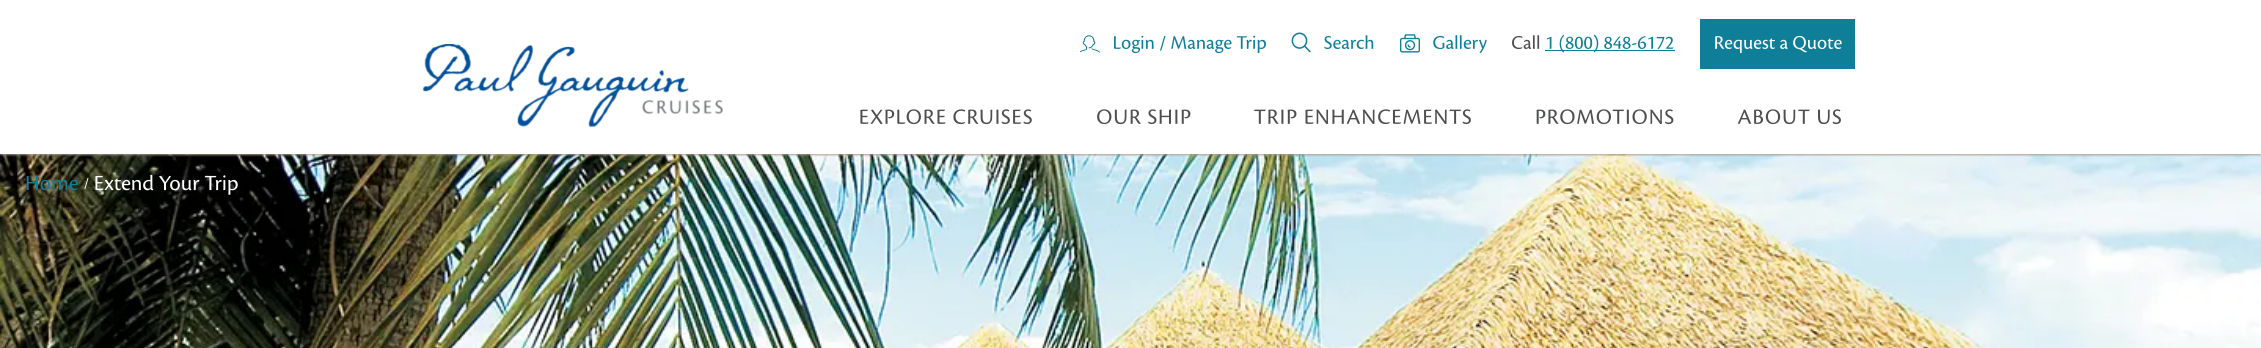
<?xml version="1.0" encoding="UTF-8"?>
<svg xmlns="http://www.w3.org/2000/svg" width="2261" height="348">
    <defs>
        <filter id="blur1" x="-50%" y="-200%" width="200%" height="500%"><feGaussianBlur stdDeviation="1"/></filter>
    </defs>
    <rect width="100%" height="100%" fill="#FFFFFF"/>
    <image x="0" y="154" width="2261" height="194" href="img_16.png"/>
    <rect x="0" y="1" width="2261" height="154" fill="#A89B8C" filter="url(#blur1)"/>
    <rect x="0" y="0" width="2261" height="154" fill="#FFFFFF"/>
    <image x="422" y="44" width="301" height="83" href="img_01.png"/>
    <image x="1080" y="35" width="20" height="18" href="img_02.png"/>
    <image x="1113" y="35" width="153" height="19" href="img_03.png"/>
    <image x="1291" y="32" width="20" height="21" href="img_04.png"/>
    <image x="1324" y="35" width="50" height="14" href="img_05.png"/>
    <image x="1400" y="34" width="20" height="19" href="img_06.png"/>
    <image x="1433" y="35" width="54" height="18" href="img_07.png"/>
    <image x="1512" y="35" width="28" height="15" href="img_08.png"/>
    <rect x="1545" y="50" width="130" height="1" fill="#0F7E98"/>
    <image x="1546" y="34" width="128" height="19" href="img_09.png"/>
    <rect x="1700" y="19" width="155" height="50" fill="#0F7E98"/>
    <image x="1715" y="35" width="127" height="19" href="img_10.png"/>
    <image x="860" y="109" width="172" height="16" href="img_11.png"/>
    <image x="1097" y="109" width="94" height="16" href="img_12.png"/>
    <image x="1254" y="109" width="217" height="16" href="img_13.png"/>
    <image x="1536" y="109" width="138" height="16" href="img_14.png"/>
    <image x="1737" y="109" width="104" height="16" href="img_15.png"/>
    <image x="26" y="175" width="52" height="16" href="img_17.png"/>
    <image x="84" y="177" width="5" height="12" href="img_18.png"/>
    <image x="95" y="174" width="143" height="21" href="img_19.png"/>
</svg>
